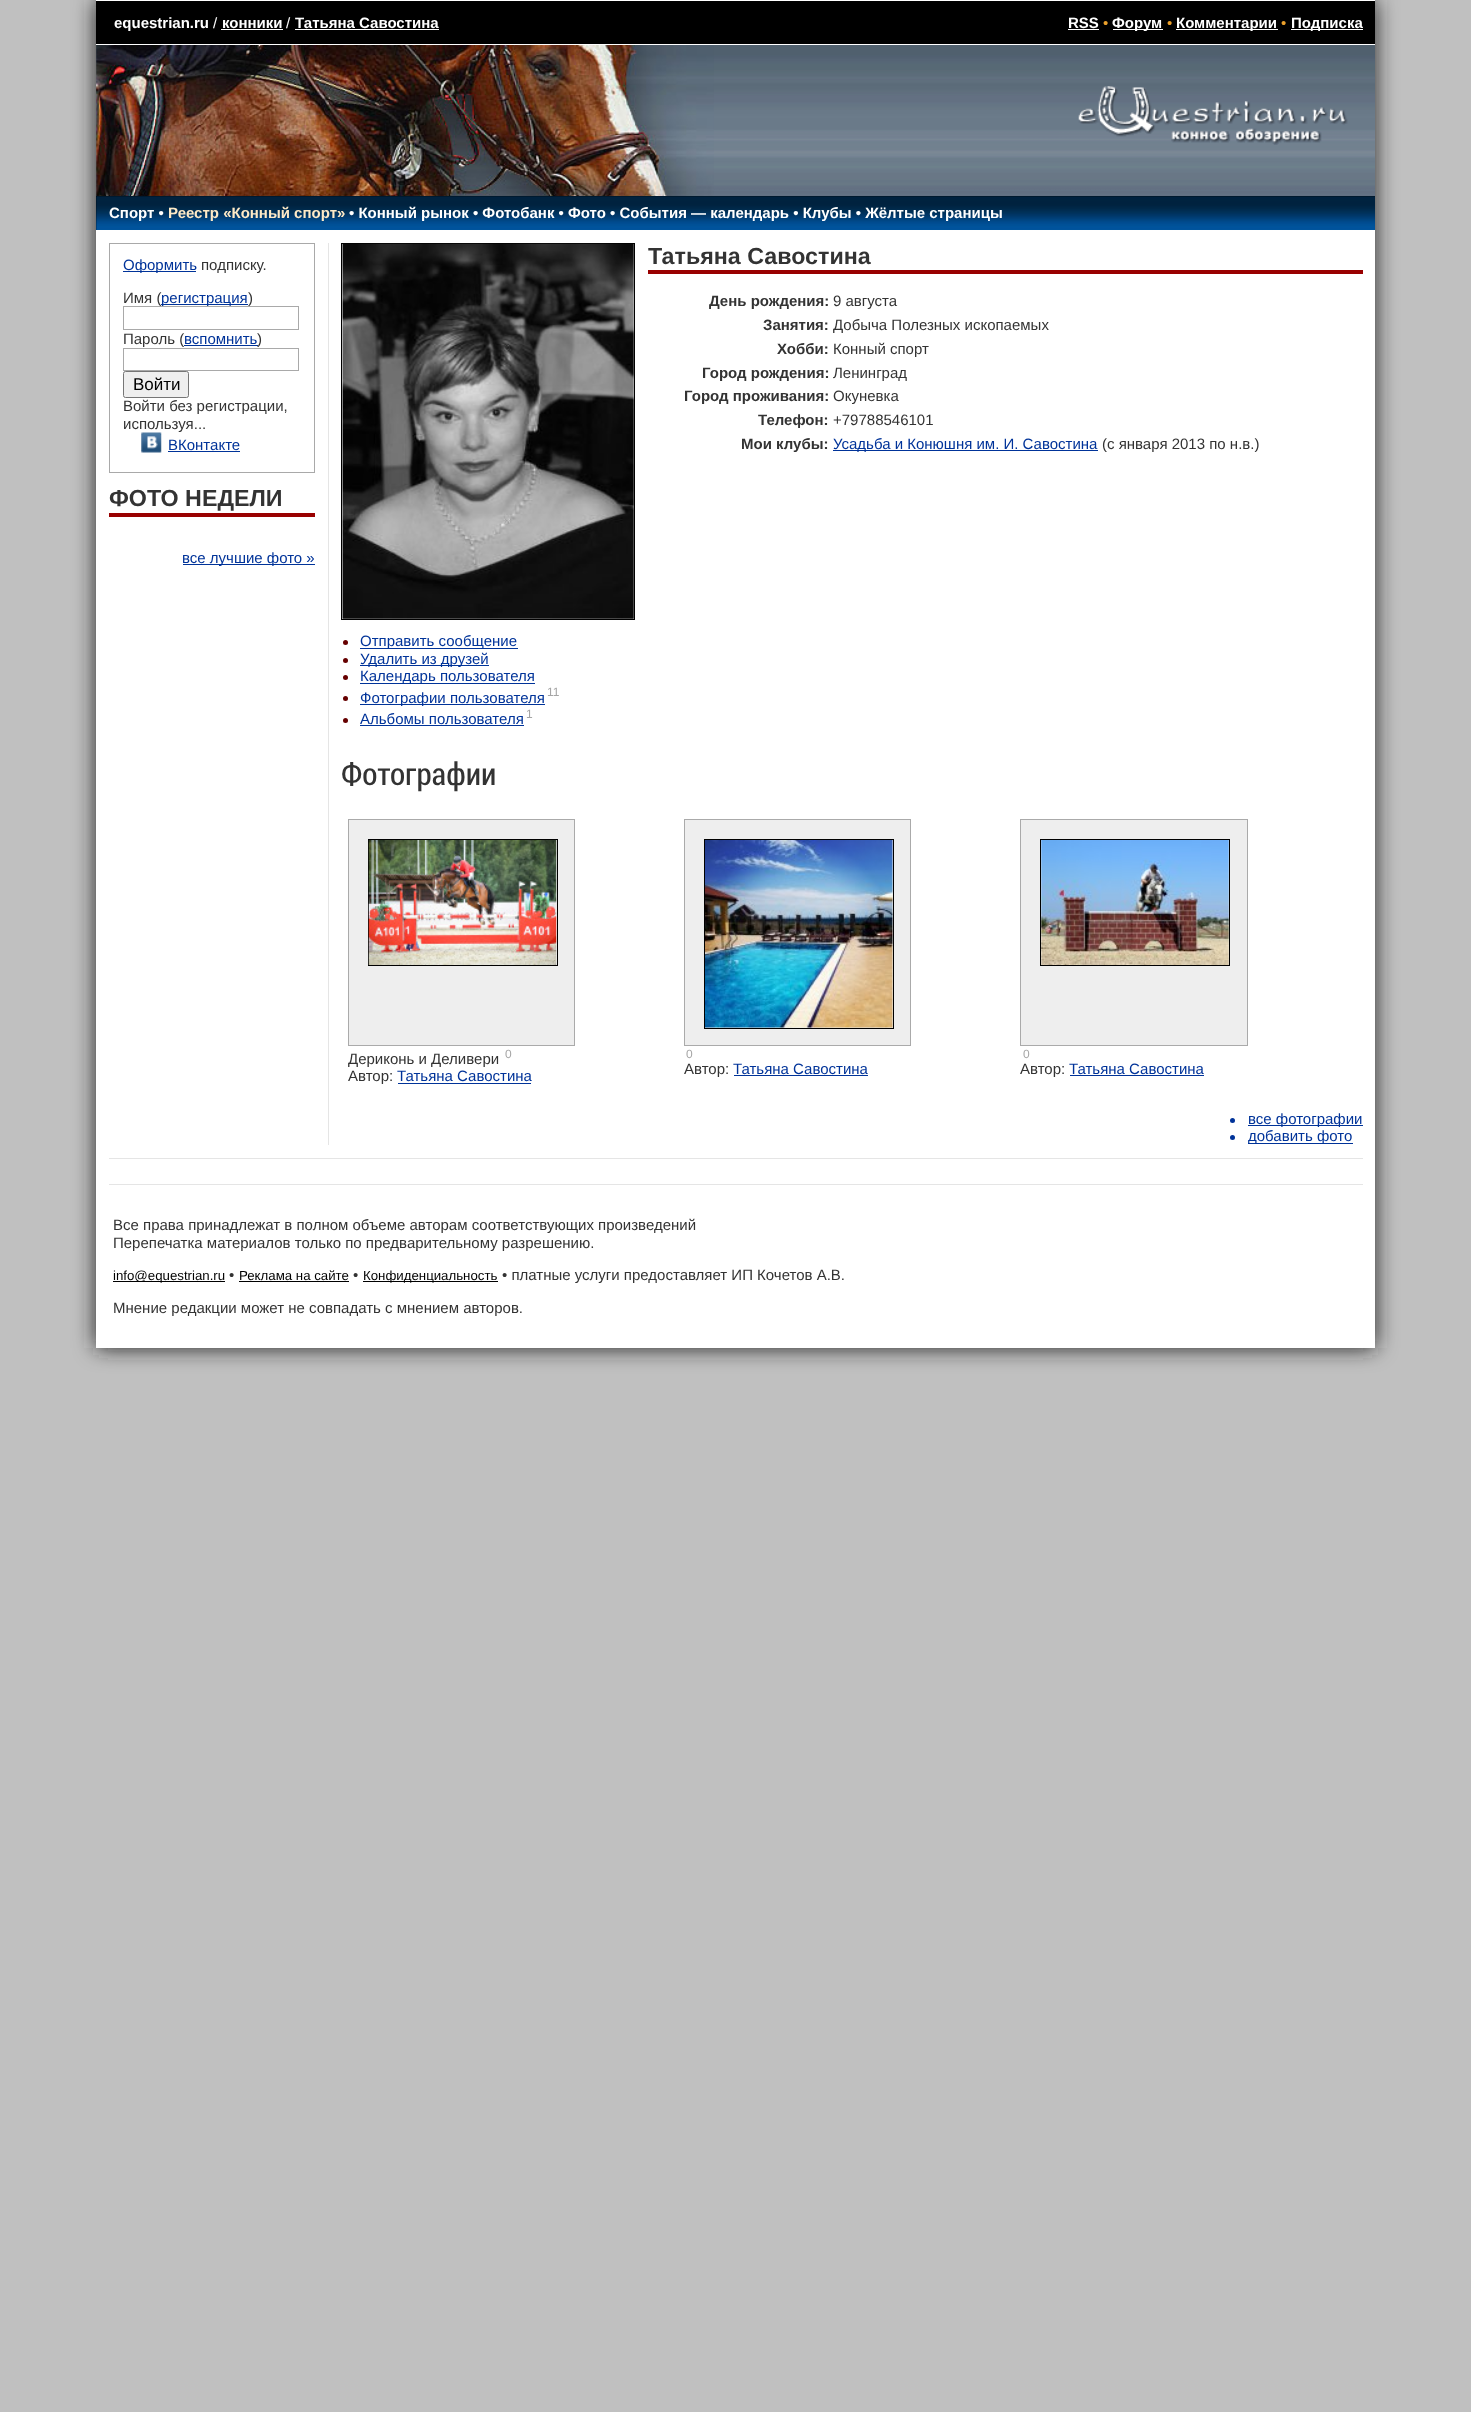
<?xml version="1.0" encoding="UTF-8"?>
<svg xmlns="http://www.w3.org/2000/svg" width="1471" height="2412">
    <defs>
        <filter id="blur1" x="-50%" y="-200%" width="200%" height="500%"><feGaussianBlur stdDeviation="10.5"/></filter>
    </defs>
    <rect width="100%" height="100%" fill="#C0C0C0"/>
    <rect x="96" y="0" width="1279" height="1348" fill="#212121" filter="url(#blur1)"/>
    <rect x="96" y="1" width="1279" height="43" fill="#000000"/>
    <rect x="96" y="0" width="1279" height="1" fill="#FFFFFF"/>
    <rect x="96" y="44" width="1279" height="1" fill="#FFFFFF"/>
    <text x="114" y="28" font-family="Liberation Sans" font-size="15" font-weight="700" fill="#FFFFFF">equestrian.ru</text>
    <text x="213" y="28" font-family="Liberation Sans" font-size="15" fill="#FFFFFF">/</text>
    <text x="222" y="28" font-family="Liberation Sans" font-size="15" font-weight="700" fill="#FFFFFF">конники</text>
    <rect x="221" y="29" width="62" height="1" fill="#FFFFFF"/>
    <text x="286" y="28" font-family="Liberation Sans" font-size="15" fill="#FFFFFF">/</text>
    <text x="295" y="28" font-family="Liberation Sans" font-size="15" font-weight="700" fill="#FFFFFF">Татьяна Савостина</text>
    <rect x="295" y="29" width="144" height="1" fill="#FFFFFF"/>
    <text x="1068" y="28" font-family="Liberation Sans" font-size="15" font-weight="700" fill="#FFFFFF">RSS</text>
    <rect x="1068" y="29" width="31" height="1" fill="#FFFFFF"/>
    <text x="1103" y="28" font-family="Liberation Sans" font-size="15" fill="#EBA02B">•</text>
    <rect x="1113" y="29" width="50" height="1" fill="#FFFFFF"/>
    <text x="1112" y="28" font-family="Liberation Sans" font-size="15" font-weight="700" fill="#FFFFFF">Форум</text>
    <text x="1167" y="28" font-family="Liberation Sans" font-size="15" fill="#EBA02B">•</text>
    <rect x="1176" y="29" width="102" height="1" fill="#FFFFFF"/>
    <text x="1176" y="28" font-family="Liberation Sans" font-size="15" font-weight="700" fill="#FFFFFF">Комментарии</text>
    <text x="1281" y="28" font-family="Liberation Sans" font-size="15" fill="#EBA02B">•</text>
    <rect x="1291" y="29" width="72" height="1" fill="#FFFFFF"/>
    <text x="1291" y="28" font-family="Liberation Sans" font-size="15" font-weight="700" fill="#FFFFFF">Подписка</text>
    <image x="96" y="45" width="954" height="151" href="img_01.png"/>
    <image x="96" y="45" width="618" height="151" href="img_02.png"/>
    <image x="1050" y="45" width="325" height="151" href="img_03.png"/>
    <image x="1078" y="86" width="270" height="59" href="img_04.png"/>
    <rect x="96" y="196" width="1279" height="34" fill="#000000"/>
    <image x="96" y="196" width="1279" height="34" href="img_05.png"/>
    <text x="109" y="218" font-family="Liberation Sans" font-size="15" font-weight="700" fill="#FFFFFF">Спорт •</text>
    <text x="168" y="218" font-family="Liberation Sans" font-size="15" font-weight="700" fill="#FEEAC7">Реестр «Конный спорт»</text>
    <text x="349" y="218" font-family="Liberation Sans" font-size="15" font-weight="700" fill="#FFFFFF">• Конный рынок • Фотобанк • Фото • События — календарь • Клубы • Жёлтые страницы</text>
    <rect x="96" y="230" width="1279" height="1118" fill="#FFFFFF"/>
    <rect x="328" y="243" width="1" height="902" fill="#E5E5E5"/>
    <rect x="109.5" y="243.5" width="205" height="229" fill="none" stroke="#A9A9A9"/>
    <rect x="123" y="271" width="73" height="1" fill="#003399"/>
    <text x="123" y="270" font-family="Liberation Sans" font-size="15" fill="#003399">Оформить</text>
    <text x="201" y="270" font-family="Liberation Sans" font-size="15" fill="#333333">подписку.</text>
    <text x="123" y="303" font-family="Liberation Sans" font-size="15" fill="#333333">Имя (</text>
    <rect x="161" y="304" width="87" height="1" fill="#003399"/>
    <text x="161" y="303" font-family="Liberation Sans" font-size="15" fill="#003399">регистрация</text>
    <text x="248" y="303" font-family="Liberation Sans" font-size="15" fill="#333333">)</text>
    <rect x="123.5" y="306.5" width="175" height="23" fill="none" stroke="#A9A9A9"/>
    <text x="123" y="344" font-family="Liberation Sans" font-size="15" fill="#333333">Пароль (</text>
    <text x="184" y="344" font-family="Liberation Sans" font-size="15" fill="#003399">вспомнить</text>
    <rect x="184" y="345" width="74" height="1" fill="#003399"/>
    <text x="257" y="344" font-family="Liberation Sans" font-size="15" fill="#333333">)</text>
    <rect x="123.5" y="348.5" width="175" height="22" fill="none" stroke="#A9A9A9"/>
    <rect x="123.5" y="371.5" width="65" height="26" rx="2" fill="#EFEFEF" stroke="#767676"/>
    <text x="133" y="390" font-family="Liberation Sans" font-size="17" fill="#000000">Войти</text>
    <text font-family="Liberation Sans" font-size="15" fill="#333333">
        <tspan x="123" y="411">Войти без регистрации,</tspan>
        <tspan x="123" y="429">используя...</tspan>
    </text>
    <image x="141" y="432" width="21" height="21" href="img_06.png"/>
    <text x="168" y="450" font-family="Liberation Sans" font-size="15" fill="#003399">ВКонтакте</text>
    <rect x="168" y="451" width="72" height="1" fill="#003399"/>
    <rect x="109" y="513" width="206" height="4" fill="#990000"/>
    <text x="109" y="506" font-family="Liberation Sans" font-size="23.25" font-weight="700" fill="#333333">ФОТО НЕДЕЛИ</text>
    <rect x="183" y="564" width="132" height="1" fill="#003399"/>
    <text x="182" y="563" font-family="Liberation Sans" font-size="15" fill="#003399">все лучшие фото »</text>
    <rect x="648" y="270" width="715" height="4" fill="#990000"/>
    <text x="648" y="264" font-family="Liberation Sans" font-size="23.25" font-weight="700" fill="#333333">Татьяна Савостина</text>
    <text x="709" y="306" font-family="Liberation Sans" font-size="15" font-weight="700" fill="#333333">День рождения:</text>
    <text x="833" y="306" font-family="Liberation Sans" font-size="15" fill="#333333">9 августа</text>
    <text x="763" y="330" font-family="Liberation Sans" font-size="15" font-weight="700" fill="#333333">Занятия:</text>
    <text x="833" y="330" font-family="Liberation Sans" font-size="15" fill="#333333">Добыча Полезных ископаемых</text>
    <text x="777" y="354" font-family="Liberation Sans" font-size="15" font-weight="700" fill="#333333">Хобби:</text>
    <text x="833" y="354" font-family="Liberation Sans" font-size="15" fill="#333333">Конный спорт</text>
    <text x="702" y="378" font-family="Liberation Sans" font-size="15" font-weight="700" fill="#333333">Город рождения:</text>
    <text x="833" y="378" font-family="Liberation Sans" font-size="15" fill="#333333">Ленинград</text>
    <text x="684" y="401" font-family="Liberation Sans" font-size="15" font-weight="700" fill="#333333">Город проживания:</text>
    <text x="833" y="401" font-family="Liberation Sans" font-size="15" fill="#333333">Окуневка</text>
    <text x="758" y="425" font-family="Liberation Sans" font-size="15" font-weight="700" fill="#333333">Телефон:</text>
    <text x="833" y="425" font-family="Liberation Sans" font-size="15" fill="#333333">+79788546101</text>
    <text x="741" y="449" font-family="Liberation Sans" font-size="15" font-weight="700" fill="#333333">Мои клубы:</text>
    <rect x="833" y="450" width="265" height="1" fill="#003399"/>
    <text x="833" y="449" font-family="Liberation Sans" font-size="15" fill="#003399">Усадьба и Конюшня им. И. Савостина</text>
    <text x="1102" y="449" font-family="Liberation Sans" font-size="15" fill="#333333">(с января 2013 по н.в.)</text>
    <rect x="341.5" y="243.5" width="293" height="376" fill="none" stroke="#000000"/>
    <image x="342" y="243" width="292" height="376" href="img_07.png"/>
    <circle cx="345.5" cy="642.5" r="2.5" fill="#660000"/>
    <rect x="360" y="648" width="158" height="1" fill="#003399"/>
    <text x="360" y="646" font-family="Liberation Sans" font-size="15" fill="#003399">Отправить сообщение</text>
    <circle cx="345.5" cy="660.5" r="2.5" fill="#660000"/>
    <rect x="360" y="665" width="129" height="1" fill="#003399"/>
    <text x="360" y="664" font-family="Liberation Sans" font-size="15" fill="#003399">Удалить из друзей</text>
    <circle cx="345.5" cy="677.5" r="2.5" fill="#660000"/>
    <rect x="360" y="683" width="175" height="1" fill="#003399"/>
    <text x="360" y="681" font-family="Liberation Sans" font-size="15" fill="#003399">Календарь пользователя</text>
    <circle cx="345.5" cy="698.5" r="2.5" fill="#660000"/>
    <rect x="360" y="704" width="185" height="1" fill="#003399"/>
    <text x="360" y="703" font-family="Liberation Sans" font-size="15" fill="#003399">Фотографии пользователя</text>
    <text x="547" y="696" font-family="Liberation Sans" font-size="12" fill="#A5A5A5">11</text>
    <circle cx="345.5" cy="720.5" r="2.5" fill="#660000"/>
    <text x="360" y="724" font-family="Liberation Sans" font-size="15" fill="#003399">Альбомы пользователя</text>
    <rect x="360" y="725" width="164" height="1" fill="#003399"/>
    <text x="526" y="718" font-family="Liberation Sans" font-size="12" fill="#A5A5A5">1</text>
    <text x="341" y="785" font-family="Roboto Condensed" font-size="31.25" fill="#333333">Фотографии</text>
    <rect x="348.5" y="819.5" width="226" height="226" fill="#EEEEEE" stroke="#AAAAAA"/>
    <rect x="368.5" y="839.5" width="189" height="126" fill="none" stroke="#000000"/>
    <image x="368" y="840" width="189" height="125" href="img_08.png"/>
    <text x="348" y="1064" font-family="Liberation Sans" font-size="15" fill="#333333">Дериконь и Деливери</text>
    <text x="505" y="1058" font-family="Liberation Sans" font-size="12" fill="#A5A5A5">0</text>
    <text x="348" y="1081" font-family="Liberation Sans" font-size="15" fill="#333333">Автор:</text>
    <text x="397" y="1081" font-family="Liberation Sans" font-size="15" fill="#003399">Татьяна Савостина</text>
    <rect x="398" y="1083" width="133" height="1" fill="#003399"/>
    <rect x="684.5" y="819.5" width="226" height="226" fill="#EEEEEE" stroke="#AAAAAA"/>
    <rect x="704.5" y="839.5" width="189" height="189" fill="none" stroke="#000000"/>
    <image x="705" y="840" width="188" height="188" href="img_09.png"/>
    <text x="686" y="1058" font-family="Liberation Sans" font-size="12" fill="#A5A5A5">0</text>
    <text x="684" y="1074" font-family="Liberation Sans" font-size="15" fill="#333333">Автор:</text>
    <text x="733" y="1074" font-family="Liberation Sans" font-size="15" fill="#003399">Татьяна Савостина</text>
    <rect x="734" y="1075" width="134" height="1" fill="#003399"/>
    <rect x="1020.5" y="819.5" width="227" height="226" fill="#EEEEEE" stroke="#AAAAAA"/>
    <rect x="1040.5" y="839.5" width="189" height="126" fill="none" stroke="#000000"/>
    <image x="1041" y="840" width="188" height="125" href="img_10.png"/>
    <text x="1023" y="1058" font-family="Liberation Sans" font-size="12" fill="#A5A5A5">0</text>
    <text x="1020" y="1074" font-family="Liberation Sans" font-size="15" fill="#333333">Автор:</text>
    <text x="1069" y="1074" font-family="Liberation Sans" font-size="15" fill="#003399">Татьяна Савостина</text>
    <rect x="1070" y="1075" width="134" height="1" fill="#003399"/>
    <circle cx="1232.5" cy="1120.5" r="2.5" fill="#003399"/>
    <rect x="1248" y="1125" width="115" height="1" fill="#003399"/>
    <text x="1248" y="1124" font-family="Liberation Sans" font-size="15" fill="#003399">все фотографии</text>
    <circle cx="1232.5" cy="1137.5" r="2.5" fill="#003399"/>
    <rect x="1248" y="1143" width="105" height="1" fill="#003399"/>
    <text x="1248" y="1141" font-family="Liberation Sans" font-size="15" fill="#003399">добавить фото</text>
    <rect x="109" y="1158" width="1254" height="1" fill="#E5E5E5"/>
    <rect x="109" y="1184" width="1254" height="1" fill="#E5E5E5"/>
    <text font-family="Liberation Sans" font-size="15" fill="#333333">
        <tspan x="113" y="1230">Все права принадлежат в полном объеме авторам соответствующих произведений</tspan>
        <tspan x="113" y="1248">Перепечатка материалов только по предварительному разрешению.</tspan>
    </text>
    <rect x="113" y="1281" width="112" height="1" fill="#000000"/>
    <text x="113" y="1280" font-family="Liberation Sans" font-size="13.25" fill="#000000">info@equestrian.ru</text>
    <text x="229" y="1280" font-family="Liberation Sans" font-size="15" fill="#333333">•</text>
    <text x="239" y="1280" font-family="Liberation Sans" font-size="13.25" fill="#000000">Реклама на сайте</text>
    <rect x="239" y="1281" width="110" height="1" fill="#000000"/>
    <text x="353" y="1280" font-family="Liberation Sans" font-size="15" fill="#333333">•</text>
    <rect x="363" y="1281" width="135" height="1" fill="#000000"/>
    <text x="363" y="1280" font-family="Liberation Sans" font-size="13.25" fill="#000000">Конфиденциальность</text>
    <text x="502" y="1280" font-family="Liberation Sans" font-size="15" fill="#333333">• платные услуги предоставляет ИП Кочетов А.В.</text>
    <text x="113" y="1313" font-family="Liberation Sans" font-size="15" fill="#333333">Мнение редакции может не совпадать с мнением авторов.</text>
</svg>
